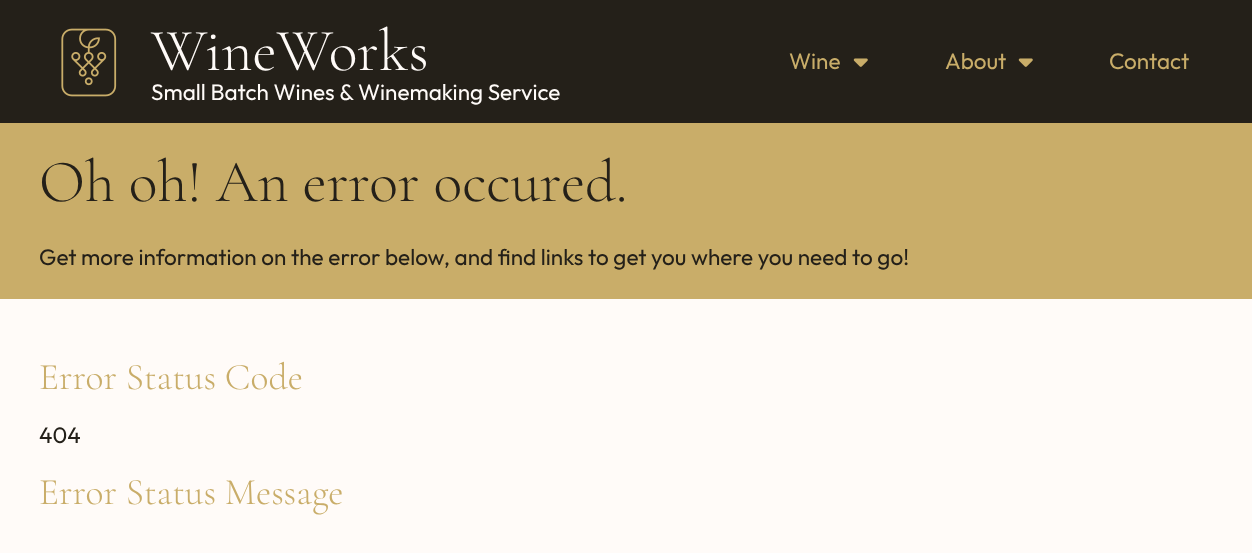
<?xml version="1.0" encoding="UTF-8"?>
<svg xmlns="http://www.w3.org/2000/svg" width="1252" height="553">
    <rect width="100%" height="100%" fill="#242019"/>
    <image x="61" y="28" width="56" height="69" href="img_01.png"/>
    <text x="151" y="70" font-family="Cormorant Garamond" font-size="60" font-weight="300" fill="#FFFBF8">WineWorks</text>
    <text x="151" y="100" font-family="Outfit" font-size="22.5" font-weight="100" fill="#FFFBF8">Small Batch Wines &amp; Winemaking Service</text>
    <text x="789" y="69" font-family="Outfit" font-size="22.5" font-weight="100" fill="#C9AD69">Wine</text>
    <image x="853" y="58" width="15" height="9" href="img_02.png"/>
    <text x="945" y="69" font-family="Outfit" font-size="22.5" font-weight="100" fill="#C9AD69">About</text>
    <image x="1018" y="58" width="15" height="9" href="img_02.png"/>
    <text x="1109" y="69" font-family="Outfit" font-size="22.5" font-weight="100" fill="#C9AD69">Contact</text>
    <rect x="0" y="123" width="1252" height="176" fill="#C9AD69"/>
    <text x="39" y="201" font-family="Cormorant Garamond" font-size="60" font-weight="300" fill="#242019">Oh oh! An error occured.</text>
    <text x="39" y="265" font-family="Outfit" font-size="22.5" font-weight="100" fill="#242019">Get more information on the error below, and find links to get you where you need to go!</text>
    <rect x="0" y="299" width="1252" height="254" fill="#FFFBF8"/>
    <text x="39" y="389" font-family="Cormorant Garamond" font-size="37.5" font-weight="300" fill="#C9AD69">Error Status Code</text>
    <text x="39" y="443" font-family="Outfit" font-size="22.5" font-weight="100" fill="#242019">404</text>
    <text x="39" y="504" font-family="Cormorant Garamond" font-size="37.5" font-weight="300" fill="#C9AD69">Error Status Message</text>
</svg>
